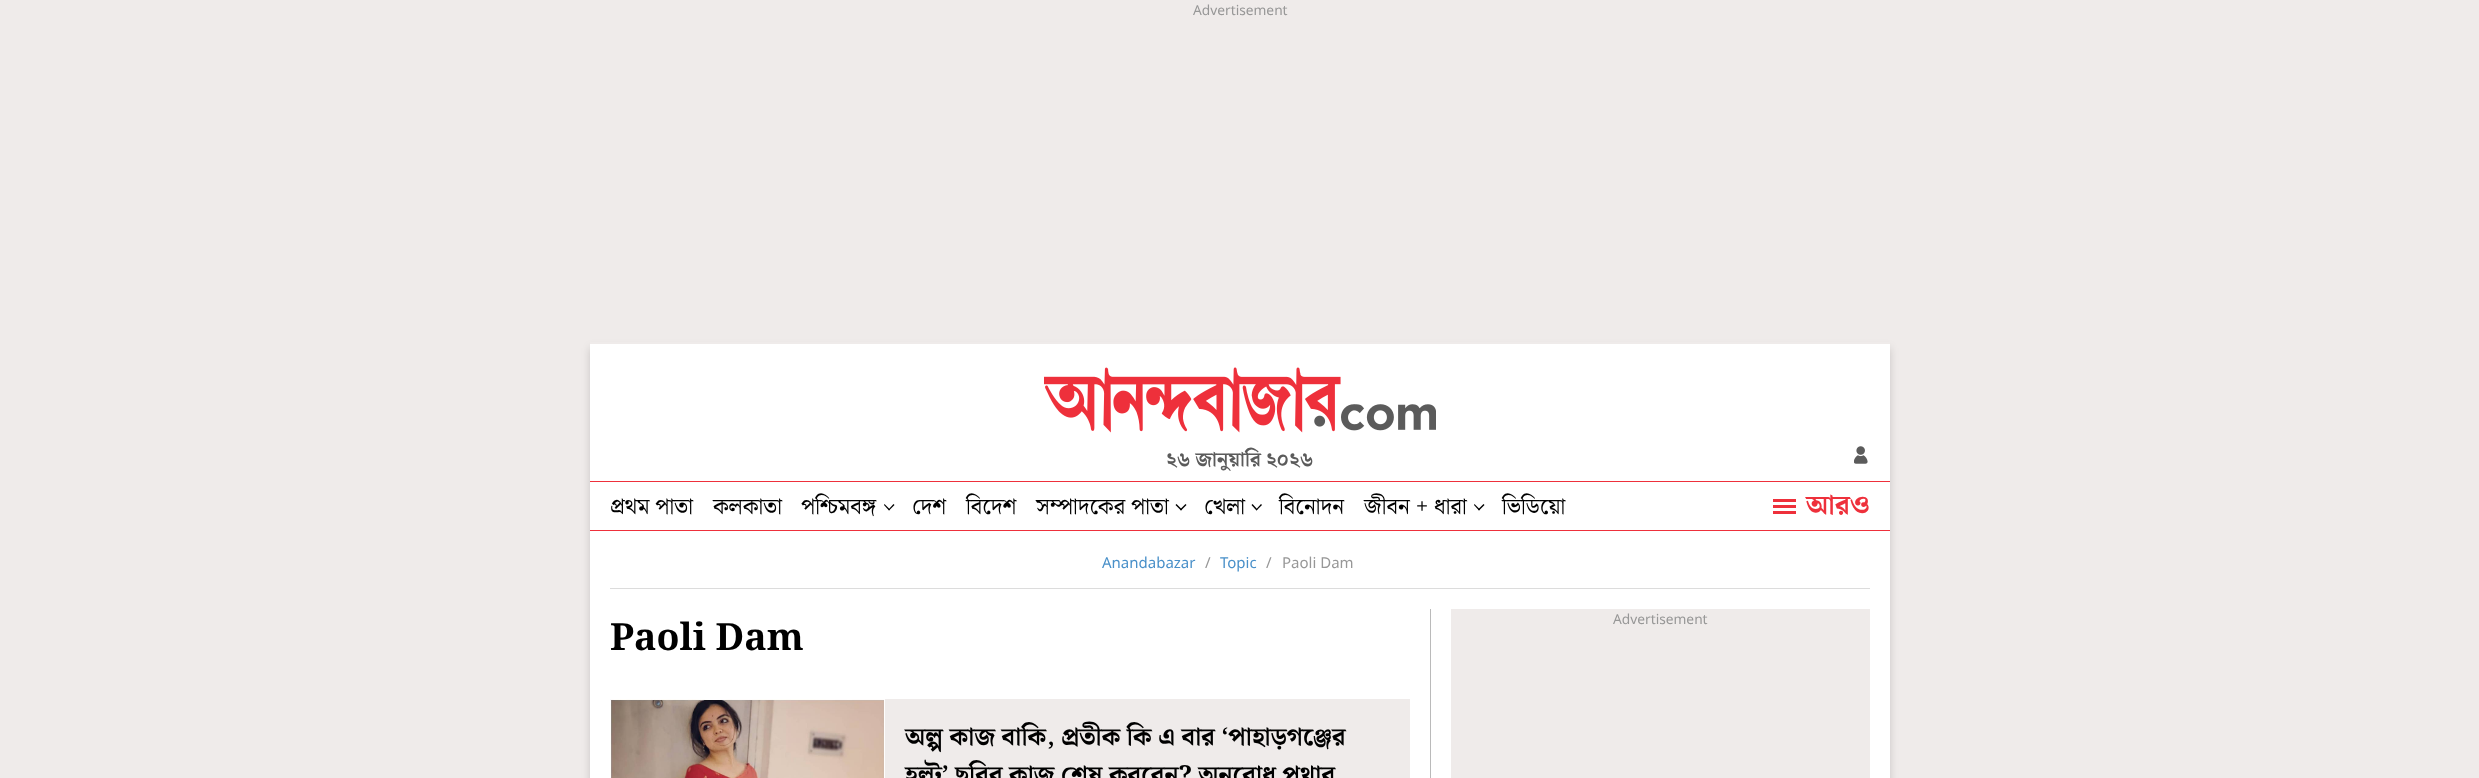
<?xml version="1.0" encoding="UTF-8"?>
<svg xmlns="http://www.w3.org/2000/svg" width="2479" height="778">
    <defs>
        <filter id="blur1" x="-50%" y="-200%" width="200%" height="500%"><feGaussianBlur stdDeviation="4"/></filter>
    </defs>
    <rect width="100%" height="100%" fill="#EFEBEA"/>
    <rect x="590" y="348" width="1300" height="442" fill="#000000" fill-opacity="0.16" filter="url(#blur1)"/>
    <rect x="590" y="342" width="1300" height="2" fill="#EFEBEA"/>
    <text x="1193" y="15" font-family="Noto Sans" font-size="13.75" fill="#979797">Advertisement</text>
    <rect x="590" y="344" width="1300" height="434" fill="#FFFFFF"/>
    <image x="1044" y="367" width="392" height="66" href="img_01.png"/>
    <text x="1166" y="466" font-family="Noto Serif Bengali" font-size="20" font-weight="700" fill="#5B5B5B">২৬ জানুয়ারি ২০২৬</text>
    <image x="1854" y="446" width="14" height="18" href="img_02.png"/>
    <rect x="590" y="481" width="1300" height="1" fill="#EE303B"/>
    <rect x="590" y="530" width="1300" height="1" fill="#EE303B"/>
    <text x="610" y="514" font-family="Noto Serif Bengali" font-size="22.5" fill="#000000">প্রথম পাতা</text>
    <text x="713" y="514" font-family="Noto Serif Bengali" font-size="22.5" fill="#000000">কলকাতা</text>
    <text x="801" y="514" font-family="Noto Serif Bengali" font-size="22.5" fill="#000000">পশ্চিমবঙ্গ</text>
    <path d="M 888.5 509.5 L 893.5 504 L 894.5 505 L 889 510.5 Z" fill="#000000"/>
    <path d="M 884 505 L 884.5 504 L 890 509.5 L 889 510.5 Z" fill="#000000"/>
    <text x="912" y="514" font-family="Noto Serif Bengali" font-size="22.5" fill="#000000">দেশ</text>
    <text x="966" y="514" font-family="Noto Serif Bengali" font-size="22.5" fill="#000000">বিদেশ</text>
    <text x="1036" y="514" font-family="Noto Serif Bengali" font-size="22.5" fill="#000000">সম্পাদকের পাতা</text>
    <path d="M 1180 509.5 L 1185.5 504 L 1186.5 505 L 1181 510.5 Z" fill="#000000"/>
    <path d="M 1175.5 505 L 1176.5 504 L 1182 509.5 L 1181 510.5 Z" fill="#000000"/>
    <text x="1204" y="514" font-family="Noto Serif Bengali" font-size="22.5" fill="#000000">খেলা</text>
    <path d="M 1256 509.5 L 1261 504 L 1262 505 L 1256.5 510.5 Z" fill="#000000"/>
    <path d="M 1251.5 505 L 1252.5 504 L 1257.5 509.5 L 1256.5 510.5 Z" fill="#000000"/>
    <text x="1279" y="514" font-family="Noto Serif Bengali" font-size="22.5" fill="#000000">বিনোদন</text>
    <text x="1364" y="514" font-family="Noto Serif Bengali" font-size="22.5" fill="#000000">জীবন + ধারা</text>
    <path d="M 1478 509.5 L 1483.5 504 L 1484.5 505 L 1479 510.5 Z" fill="#000000"/>
    <path d="M 1474 505 L 1474.5 504 L 1480 509.5 L 1479 510.5 Z" fill="#000000"/>
    <text x="1502" y="514" font-family="Noto Serif Bengali" font-size="22.5" fill="#000000">ভিডিয়ো</text>
    <rect x="1773" y="505" width="23" height="3" fill="#EE303B"/>
    <rect x="1773" y="499" width="23" height="3" fill="#EE303B"/>
    <rect x="1773" y="511" width="23" height="3" fill="#EE303B"/>
    <text x="1806" y="514" font-family="Noto Serif Bengali" font-size="27.5" font-weight="700" fill="#EE303B">আরও</text>
    <rect x="610" y="588" width="1260" height="1" fill="#DCDCDC"/>
    <text x="1102" y="568" font-family="Noto Sans" font-size="15" fill="#4990C9">Anandabazar</text>
    <text x="1205" y="568" font-family="Noto Sans" font-size="15" fill="#979797">/</text>
    <text x="1220" y="568" font-family="Noto Sans" font-size="15" fill="#4990C9">Topic</text>
    <text x="1266" y="568" font-family="Noto Sans" font-size="15" fill="#979797">/</text>
    <text x="1282" y="568" font-family="Noto Sans" font-size="15" fill="#979797">Paoli Dam</text>
    <rect x="1451" y="609" width="419" height="169" fill="#EFEBEA"/>
    <text x="1613" y="624" font-family="Noto Sans" font-size="13.75" fill="#979797">Advertisement</text>
    <rect x="1430" y="609" width="1" height="169" fill="#BABABA"/>
    <text x="610" y="650" font-family="Noto Serif Bengali" font-size="37.5" font-weight="700" fill="#000000">Paoli Dam</text>
    <rect x="885" y="699" width="525" height="79" fill="#EFEBEA"/>
    <image x="610" y="699" width="275" height="79" href="img_03.png"/>
    <text font-family="Noto Serif Bengali" font-size="25" font-weight="700" fill="#000000">
        <tspan x="905" y="745">অল্প কাজ বাকি, প্রতীক কি এ বার ‘পাহাড়গঞ্জের</tspan>
        <tspan x="905" y="783">হল্ট’ ছবির কাজ শেষ করবেন? অনুরোধ পৃথার</tspan>
    </text>
</svg>
